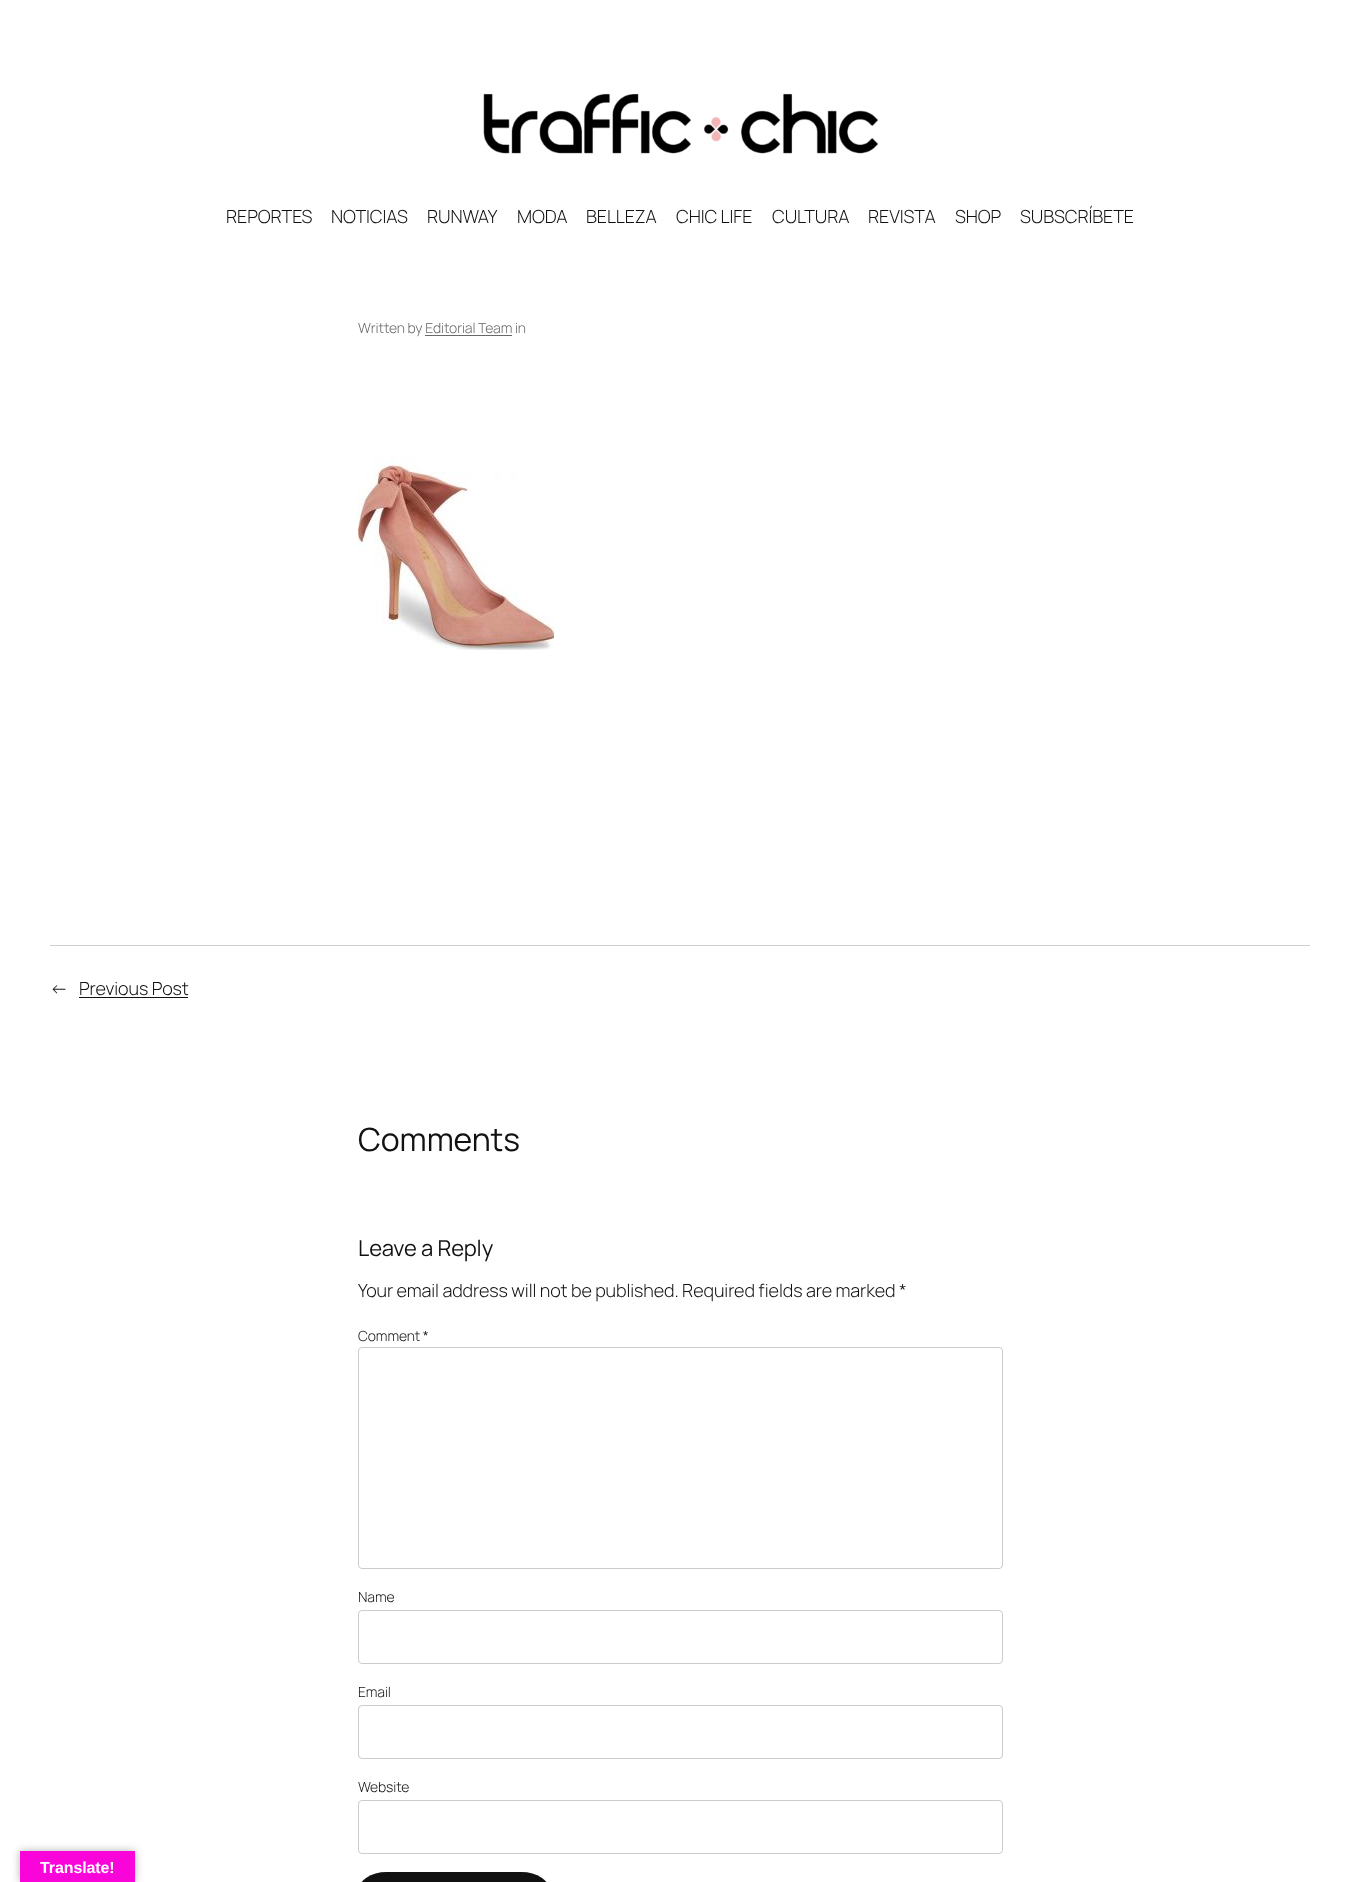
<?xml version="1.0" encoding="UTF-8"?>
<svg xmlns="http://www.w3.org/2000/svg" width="1360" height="1882">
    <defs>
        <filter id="blur1" x="-50%" y="-200%" width="200%" height="500%"><feGaussianBlur stdDeviation="4.5"/></filter>
    </defs>
    <rect width="100%" height="100%" fill="#FFFFFF"/>
    <image x="483" y="93" width="396" height="61" href="img_01.png"/>
    <text x="226" y="223" font-family="Manrope" font-size="18" font-weight="300" letter-spacing="-0.1" fill="#111111">REPORTES</text>
    <text x="331" y="223" font-family="Manrope" font-size="18" font-weight="300" letter-spacing="-0.1" fill="#111111">NOTICIAS</text>
    <text x="427" y="223" font-family="Manrope" font-size="18" font-weight="300" letter-spacing="-0.1" fill="#111111">RUNWAY</text>
    <text x="517" y="223" font-family="Manrope" font-size="18" font-weight="300" letter-spacing="-0.1" fill="#111111">MODA</text>
    <text x="586" y="223" font-family="Manrope" font-size="18" font-weight="300" letter-spacing="-0.1" fill="#111111">BELLEZA</text>
    <text x="676" y="223" font-family="Manrope" font-size="18" font-weight="300" letter-spacing="-0.1" fill="#111111">CHIC LIFE</text>
    <text x="772" y="223" font-family="Manrope" font-size="18" font-weight="300" letter-spacing="-0.1" fill="#111111">CULTURA</text>
    <text x="868" y="223" font-family="Manrope" font-size="18" font-weight="300" letter-spacing="-0.1" fill="#111111">REVISTA</text>
    <text x="955" y="223" font-family="Manrope" font-size="18" font-weight="300" letter-spacing="-0.1" fill="#111111">SHOP</text>
    <text x="1020" y="223" font-family="Manrope" font-size="18" font-weight="300" letter-spacing="-0.1" fill="#111111">SUBSCRÍBETE</text>
    <text x="358" y="333" font-family="Manrope" font-size="14" font-weight="300" letter-spacing="-0.1" fill="#686868">Written by Editorial Team in</text>
    <rect x="425" y="335" width="87" height="1" fill="#686868"/>
    <image x="358" y="456" width="196" height="194" href="img_02.png"/>
    <rect x="50" y="945" width="1260" height="1" fill="#CFCFCF"/>
    <text x="50" y="995" font-family="Manrope" font-size="18" font-weight="300" letter-spacing="-0.1" fill="#111111">←</text>
    <text x="79" y="995" font-family="Manrope" font-size="18" font-weight="300" letter-spacing="-0.1" fill="#111111">Previous Post</text>
    <rect x="79" y="997" width="109" height="1" fill="#111111"/>
    <text x="358" y="1151" font-family="Manrope" font-size="32" letter-spacing="-0.1" fill="#111111">Comments</text>
    <text x="358" y="1256" font-family="Manrope" font-size="22" letter-spacing="-0.1" fill="#111111">Leave a Reply</text>
    <text x="358" y="1297" font-family="Manrope" font-size="18" font-weight="300" letter-spacing="-0.1" fill="#111111">Your email address will not be published. Required fields are marked *</text>
    <text x="358" y="1341" font-family="Manrope" font-size="14" font-weight="300" letter-spacing="-0.1" fill="#111111">Comment *</text>
    <rect x="358.5" y="1347.5" width="644" height="221" rx="3.5" fill="none" stroke="#CCCCCC"/>
    <text x="358" y="1602" font-family="Manrope" font-size="14" font-weight="300" letter-spacing="-0.1" fill="#111111">Name</text>
    <rect x="358.5" y="1610.5" width="644" height="53" rx="3.5" fill="none" stroke="#CCCCCC"/>
    <text x="358" y="1697" font-family="Manrope" font-size="14" font-weight="300" letter-spacing="-0.1" fill="#111111">Email</text>
    <rect x="358.5" y="1705.5" width="644" height="53" rx="3.5" fill="none" stroke="#CCCCCC"/>
    <text x="358" y="1792" font-family="Manrope" font-size="14" font-weight="300" letter-spacing="-0.1" fill="#111111">Website</text>
    <rect x="358.5" y="1800.5" width="644" height="53" rx="3.5" fill="none" stroke="#CCCCCC"/>
    <rect x="358" y="1872" width="192" height="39" rx="28.5" fill="#111111"/>
    <rect x="20" y="1851" width="115" height="31" fill="#000000" fill-opacity="0.3" filter="url(#blur1)"/>
    <rect x="20" y="1851" width="115" height="31" fill="#F904D9"/>
    <text x="40" y="1873" font-family="Liberation Sans" font-size="16" font-weight="700" letter-spacing="-0.1" fill="#FFFFFF">Translate!</text>
</svg>
